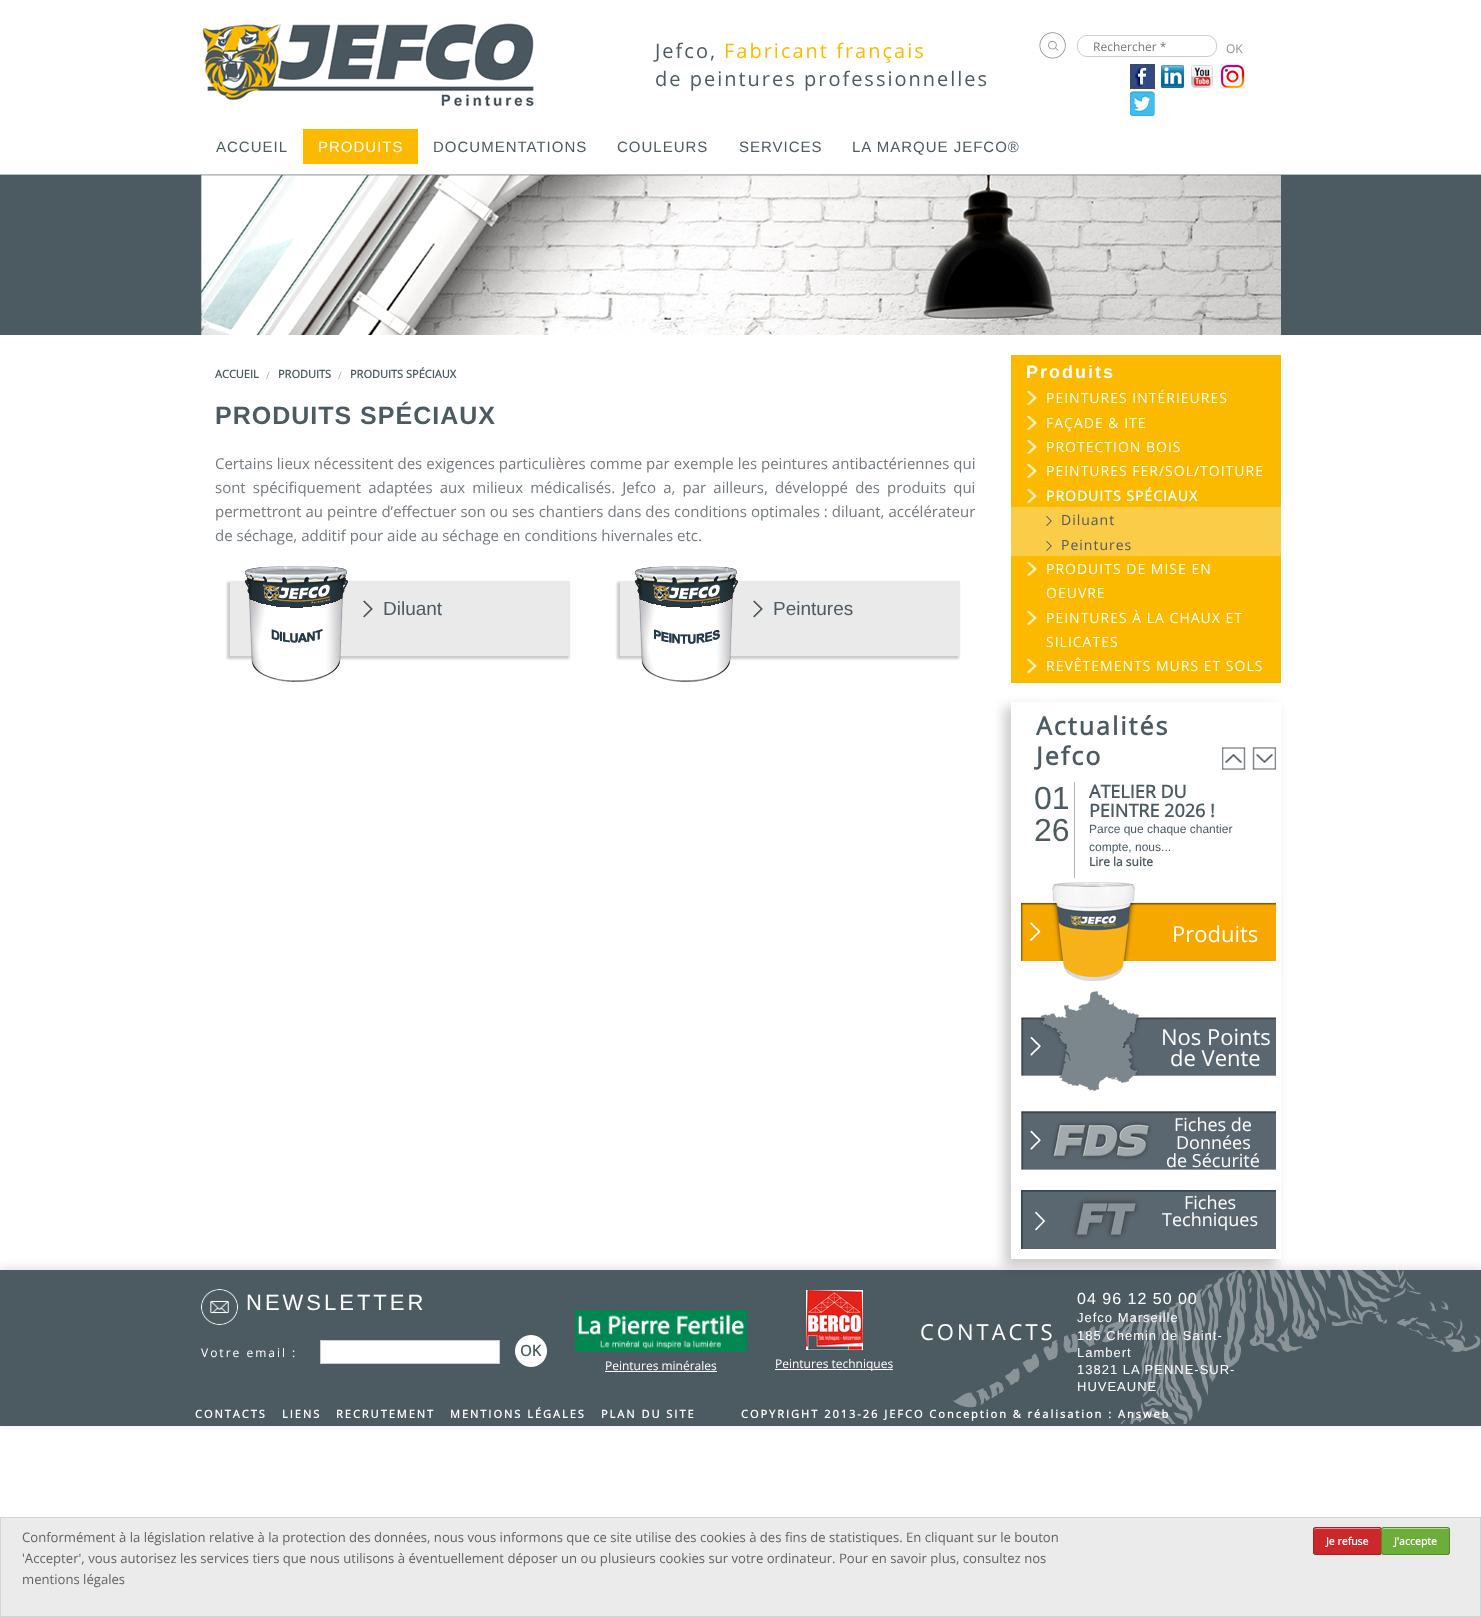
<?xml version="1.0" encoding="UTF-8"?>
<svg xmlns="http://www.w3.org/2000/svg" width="1481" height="1617">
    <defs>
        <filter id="blur1" x="-50%" y="-200%" width="200%" height="500%"><feGaussianBlur stdDeviation="1"/></filter>
        <filter id="blur2" x="-50%" y="-200%" width="200%" height="500%"><feGaussianBlur stdDeviation="4"/></filter>
        <clipPath id="clip1"><path d="M 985 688 H 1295 V 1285 H 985 Z M 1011 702 H 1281 V 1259 H 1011 Z" clip-rule="evenodd"/></clipPath>
        <filter id="blur3" x="-50%" y="-200%" width="200%" height="500%"><feGaussianBlur stdDeviation="6"/></filter>
    </defs>
    <rect width="100%" height="100%" fill="#FFFFFF"/>
    <image x="202" y="23" width="332" height="84" href="img_01.png"/>
    <text x="655" y="58" font-family="Open Sans" font-size="20" letter-spacing="2" fill="#4C5A62">Jefco,</text>
    <text x="724" y="58" font-family="Open Sans" font-size="20" letter-spacing="2" fill="#FBBA00">Fabricant français</text>
    <text x="655" y="86" font-family="Open Sans" font-size="20" letter-spacing="2" fill="#4C5A62">de peintures professionnelles</text>
    <image x="1039" y="32" width="27" height="27" href="img_02.png"/>
    <rect x="1077.5" y="35.5" width="139" height="21" rx="9.5" fill="none" stroke="#CCCCCC"/>
    <text x="1093" y="51" font-family="Open Sans" font-size="12" fill="#757575">Rechercher *</text>
    <text x="1226" y="53" font-family="Open Sans" font-size="12" fill="#8E8E8E">OK</text>
    <image x="1130" y="64" width="25" height="25" href="img_03.png"/>
    <image x="1161" y="65" width="23" height="23" href="img_04.png"/>
    <image x="1191" y="65" width="22" height="23" href="img_05.png"/>
    <image x="1220" y="64" width="25" height="25" href="img_06.png"/>
    <image x="1130" y="91" width="25" height="25" href="img_07.png"/>
    <text x="216" y="152" font-family="Liberation Sans" font-size="15" letter-spacing="1" fill="#4C5A62">ACCUEIL</text>
    <rect x="303" y="129" width="115" height="35" fill="#FBBA00"/>
    <text x="318" y="152" font-family="Liberation Sans" font-size="15" letter-spacing="1" fill="#FFFFFF">PRODUITS</text>
    <text x="433" y="152" font-family="Liberation Sans" font-size="15" letter-spacing="1" fill="#4C5A62">DOCUMENTATIONS</text>
    <text x="617" y="152" font-family="Liberation Sans" font-size="15" letter-spacing="1" fill="#4C5A62">COULEURS</text>
    <text x="739" y="152" font-family="Liberation Sans" font-size="15" letter-spacing="1" fill="#4C5A62">SERVICES</text>
    <text x="852" y="152" font-family="Liberation Sans" font-size="15" letter-spacing="1" fill="#4C5A62">LA MARQUE JEFCO®</text>
    <rect x="0" y="175" width="1481" height="160" fill="#4C5A62"/>
    <rect x="0" y="174" width="1481" height="1" fill="#B7BDC0"/>
    <image x="201" y="175" width="1080" height="160" href="img_08.png"/>
    <text x="215" y="378" font-family="Open Sans" font-size="11" font-weight="700" fill="#4C5A62">ACCUEIL</text>
    <text x="266" y="379" font-family="Open Sans" font-size="10" fill="#AAAAAA">/</text>
    <text x="278" y="378" font-family="Open Sans" font-size="11" font-weight="700" fill="#4C5A62">PRODUITS</text>
    <text x="338" y="379" font-family="Open Sans" font-size="10" fill="#AAAAAA">/</text>
    <text x="350" y="378" font-family="Open Sans" font-size="11" font-weight="700" fill="#4C5A62">PRODUITS SPÉCIAUX</text>
    <text x="215" y="424" font-family="Liberation Sans" font-size="25" font-weight="700" letter-spacing="1" fill="#4C5A62">PRODUITS SPÉCIAUX</text>
    <text font-family="Open Sans" font-size="15" fill="#72797F">
        <tspan x="215" y="469" word-spacing="0.1">Certains lieux nécessitent des exigences particulières comme par exemple les peintures antibactériennes qui</tspan>
        <tspan x="215" y="493" word-spacing="3.25">sont spécifiquement adaptées aux milieux médicalisés. Jefco a, par ailleurs, développé des produits qui</tspan>
        <tspan x="215" y="517" word-spacing="0.1">permettront au peintre d’effectuer son ou ses chantiers dans des conditions optimales : diluant, accélérateur</tspan>
        <tspan x="215" y="541">de séchage, additif pour aide au séchage en conditions hivernales etc.</tspan>
    </text>
    <rect x="227" y="582" width="342" height="77" fill="#000000" fill-opacity="0.2" filter="url(#blur1)"/>
    <rect x="230" y="581" width="340" height="75" fill="#EBEAEA"/>
    <image x="245" y="566" width="103" height="116" href="img_09.png"/>
    <image x="363" y="600" width="10" height="18" href="img_10.png"/>
    <text x="383" y="615" font-family="Liberation Sans" font-size="19" fill="#4C5A62">Diluant</text>
    <rect x="617" y="582" width="342" height="77" fill="#000000" fill-opacity="0.2" filter="url(#blur1)"/>
    <rect x="620" y="581" width="340" height="75" fill="#EBEAEA"/>
    <image x="635" y="566" width="103" height="116" href="img_11.png"/>
    <image x="753" y="600" width="10" height="18" href="img_10.png"/>
    <text x="773" y="615" font-family="Liberation Sans" font-size="19" fill="#4C5A62">Peintures</text>
    <rect x="1011" y="355" width="270" height="328" fill="#FBBA00"/>
    <text x="1026" y="378" font-family="Liberation Sans" font-size="18" font-weight="700" letter-spacing="2" fill="#FFFFFF">Produits</text>
    <image x="1027" y="390" width="10" height="16" href="img_12.png"/>
    <text x="1046" y="403" font-family="Open Sans" font-size="14" letter-spacing="1" fill="#FFFFFF">PEINTURES INTÉRIEURES</text>
    <image x="1027" y="415" width="10" height="16" href="img_12.png"/>
    <text x="1046" y="428" font-family="Open Sans" font-size="14" letter-spacing="1" fill="#FFFFFF">FAÇADE &amp; ITE</text>
    <image x="1027" y="439" width="10" height="16" href="img_12.png"/>
    <text x="1046" y="452" font-family="Open Sans" font-size="14" letter-spacing="1" fill="#FFFFFF">PROTECTION BOIS</text>
    <image x="1027" y="463" width="10" height="16" href="img_12.png"/>
    <text x="1046" y="476" font-family="Open Sans" font-size="14" letter-spacing="1" fill="#FFFFFF">PEINTURES FER/SOL/TOITURE</text>
    <image x="1027" y="488" width="10" height="16" href="img_12.png"/>
    <text x="1046" y="501" font-family="Open Sans" font-size="14" font-weight="700" letter-spacing="1" fill="#FFFFFF">PRODUITS SPÉCIAUX</text>
    <rect x="1011" y="507" width="270" height="49" fill="#FBCC48"/>
    <image x="1046" y="516" width="6" height="10" href="img_13.png"/>
    <text x="1061" y="525" font-family="Open Sans" font-size="14" letter-spacing="1" fill="#4C5A62">Diluant</text>
    <image x="1046" y="541" width="6" height="10" href="img_13.png"/>
    <text x="1061" y="550" font-family="Open Sans" font-size="14" letter-spacing="1" fill="#4C5A62">Peintures</text>
    <image x="1027" y="561" width="10" height="16" href="img_12.png"/>
    <text font-family="Open Sans" font-size="14" letter-spacing="1" fill="#FFFFFF">
        <tspan x="1046" y="574">PRODUITS DE MISE EN</tspan>
        <tspan x="1046" y="598">OEUVRE</tspan>
    </text>
    <image x="1027" y="610" width="10" height="16" href="img_12.png"/>
    <text font-family="Open Sans" font-size="14" letter-spacing="1" fill="#FFFFFF">
        <tspan x="1046" y="623">PEINTURES À LA CHAUX ET</tspan>
        <tspan x="1046" y="647">SILICATES</tspan>
    </text>
    <image x="1027" y="658" width="10" height="16" href="img_12.png"/>
    <text x="1046" y="671" font-family="Open Sans" font-size="14" letter-spacing="1" fill="#FFFFFF">REVÊTEMENTS MURS ET SOLS</text>
    <rect x="-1" y="1267" width="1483" height="158" fill="#000000" fill-opacity="0.1" filter="url(#blur2)"/>
    <rect x="0" y="1270" width="1481" height="156" fill="#4C5A62"/>
    <image x="953" y="1270" width="528" height="154" href="img_20.png"/>
    <g clip-path="url(#clip1)">
        <rect x="1004" y="707" width="272" height="559" fill="#000000" fill-opacity="0.2" filter="url(#blur3)"/>
    </g>
    <text font-family="Open Sans" font-size="25" font-weight="700" letter-spacing="2" fill="#4C5A62">
        <tspan x="1036" y="735">Actualités</tspan>
        <tspan x="1036" y="765">Jefco</tspan>
    </text>
    <image x="1222" y="747" width="24" height="23" href="img_14.png"/>
    <image x="1252" y="747" width="24" height="23" href="img_15.png"/>
    <text font-family="Liberation Sans" font-size="32" fill="#4C5A62">
        <tspan x="1034" y="809">01</tspan>
        <tspan x="1034" y="841">26</tspan>
    </text>
    <rect x="1074" y="782" width="1" height="96" fill="#ADB3B7"/>
    <text font-family="Open Sans" font-size="18" font-weight="700" fill="#4C5A62">
        <tspan x="1089" y="798">ATELIER DU</tspan>
        <tspan x="1089" y="817">PEINTRE 2026 !</tspan>
    </text>
    <text font-family="Liberation Sans" font-size="12" fill="#4C5A62">
        <tspan x="1089" y="833">Parce que chaque chantier</tspan>
        <tspan x="1089" y="851">compte, nous...</tspan>
    </text>
    <text x="1089" y="866" font-family="Open Sans" font-size="12" font-weight="700" fill="#4C5A62">Lire la suite</text>
    <image x="1021" y="882" width="255" height="99" href="img_16.png"/>
    <text x="1172" y="942" font-family="Open Sans" font-size="22" fill="#FFFFFF">Produits</text>
    <image x="1021" y="991" width="255" height="100" href="img_17.png"/>
    <text x="1161" y="1045" font-family="Open Sans" font-size="22" fill="#FFFFFF">Nos Points</text>
    <text x="1170" y="1066" font-family="Open Sans" font-size="22" fill="#FFFFFF">de Vente</text>
    <image x="1021" y="1111" width="255" height="59" href="img_18.png"/>
    <text x="1174" y="1131" font-family="Open Sans" font-size="18" fill="#FFFFFF">Fiches de</text>
    <text x="1176" y="1149" font-family="Open Sans" font-size="18" fill="#FFFFFF">Données</text>
    <text x="1166" y="1167" font-family="Open Sans" font-size="18" fill="#FFFFFF">de Sécurité</text>
    <image x="1021" y="1190" width="255" height="59" href="img_19.png"/>
    <text x="1184" y="1209" font-family="Open Sans" font-size="18" fill="#FFFFFF">Fiches</text>
    <text x="1162" y="1226" font-family="Open Sans" font-size="18" fill="#FFFFFF">Techniques</text>
    <image x="201" y="1289" width="37" height="36" href="img_21.png"/>
    <text x="246" y="1310" font-family="Liberation Sans" font-size="22" letter-spacing="3" fill="#FFFFFF">NEWSLETTER</text>
    <text x="201" y="1357" font-family="Open Sans" font-size="12" letter-spacing="2" fill="#FFFFFF">Votre email :</text>
    <rect x="320.5" y="1340.5" width="179" height="23" fill="#FFFFFF" stroke="#CCCCCC"/>
    <image x="515" y="1335" width="32" height="32" href="img_22.png"/>
    <text x="520" y="1356" font-family="Open Sans" font-size="15" font-weight="700" fill="#4C5A62">OK</text>
    <text x="920" y="1340" font-family="Open Sans" font-size="22" letter-spacing="3" fill="#FFFFFF">CONTACTS</text>
    <text x="1077" y="1304" font-family="Liberation Sans" font-size="16" letter-spacing="1" fill="#FFFFFF">04 96 12 50 00</text>
    <text font-family="Liberation Sans" font-size="13" letter-spacing="1" fill="#FFFFFF">
        <tspan x="1077" y="1322">Jefco Marseille</tspan>
        <tspan x="1077" y="1340">185 Chemin de Saint-</tspan>
        <tspan x="1077" y="1357">Lambert</tspan>
        <tspan x="1077" y="1374">13821 LA PENNE-SUR-</tspan>
        <tspan x="1077" y="1391">HUVEAUNE</tspan>
    </text>
    <image x="575" y="1310" width="172" height="42" href="img_23.png"/>
    <text x="605" y="1370" font-family="Open Sans" font-size="12" fill="#FFFFFF">Peintures minérales</text>
    <rect x="605" y="1371" width="112" height="1" fill="#FFFFFF"/>
    <image x="806" y="1290" width="57" height="60" href="img_24.png"/>
    <rect x="775" y="1369" width="118" height="1" fill="#FFFFFF"/>
    <text x="775" y="1368" font-family="Open Sans" font-size="12" fill="#FFFFFF">Peintures techniques</text>
    <text x="195" y="1418" font-family="Open Sans" font-size="11" font-weight="700" letter-spacing="2" fill="#FFFFFF">CONTACTS</text>
    <text x="282" y="1418" font-family="Open Sans" font-size="11" font-weight="700" letter-spacing="2" fill="#FFFFFF">LIENS</text>
    <text x="336" y="1418" font-family="Open Sans" font-size="11" font-weight="700" letter-spacing="2" fill="#FFFFFF">RECRUTEMENT</text>
    <text x="450" y="1418" font-family="Open Sans" font-size="11" font-weight="700" letter-spacing="2" fill="#FFFFFF">MENTIONS LÉGALES</text>
    <text x="601" y="1418" font-family="Open Sans" font-size="11" font-weight="700" letter-spacing="2" fill="#FFFFFF">PLAN DU SITE</text>
    <text x="741" y="1418" font-family="Open Sans" font-size="11" font-weight="700" letter-spacing="2" fill="#FFFFFF">COPYRIGHT 2013-26 JEFCO Conception &amp; réalisation : Answeb</text>
    <rect x="0.5" y="1517.5" width="1480" height="99" fill="#EBEBEB" stroke="#D5D5D5"/>
    <text font-family="Open Sans" font-size="13.12" fill="#626262">
        <tspan x="22" y="1542">Conformément à la législation relative à la protection des données, nous vous informons que ce site utilise des cookies à des fins de statistiques. En cliquant sur le bouton</tspan>
        <tspan x="22" y="1563">'Accepter', vous autorisez les services tiers que nous utilisons à éventuellement déposer un ou plusieurs cookies sur votre ordinateur. Pour en savoir plus, consultez nos</tspan>
        <tspan x="22" y="1584">mentions légales</tspan>
    </text>
    <rect x="1313" y="1527" width="69" height="28" rx="3" fill="#CC272B"/>
    <path d="M 1316 1529 H 1380 L 1381 1531 C 1381 1525 1372 1528 1368 1528 H 1326 C 1323 1528 1314 1525 1314 1531 C 1314 1530 1315 1529 1316 1529 Z" fill="#E69395"/>
    <rect x="1313.5" y="1527.5" width="68" height="27" rx="2.5" fill="none" stroke="#A12326"/>
    <text x="1326" y="1545" font-family="Open Sans" font-size="10.5" font-weight="700" fill="#FFFFFF">Je refuse</text>
    <rect x="1381" y="1527" width="69" height="28" rx="3" fill="#6DAD39"/>
    <path d="M 1384 1529 H 1448 L 1449 1531 C 1449 1525 1440 1528 1436 1528 H 1394 C 1391 1528 1382 1525 1382 1531 C 1382 1530 1383 1529 1384 1529 Z" fill="#B6D69C"/>
    <rect x="1381.5" y="1527.5" width="68" height="27" rx="2.5" fill="none" stroke="#588731"/>
    <text x="1394" y="1545" font-family="Open Sans" font-size="10.5" font-weight="700" fill="#FFFFFF">J'accepte</text>
</svg>
